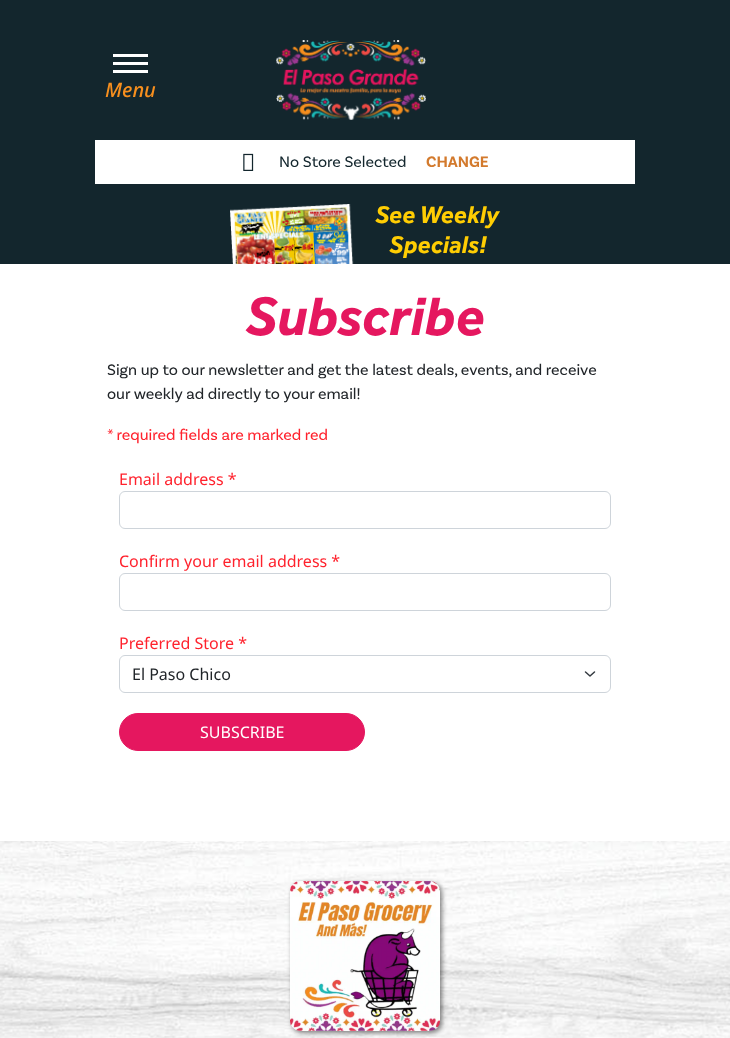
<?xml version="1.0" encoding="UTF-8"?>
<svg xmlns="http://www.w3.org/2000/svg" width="730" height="1038">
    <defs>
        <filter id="blur1" x="-50%" y="-200%" width="200%" height="500%"><feGaussianBlur stdDeviation="2.5"/></filter>
    </defs>
    <rect width="100%" height="100%" fill="#FFFFFF"/>
    <rect x="0" y="0" width="730" height="264" fill="#13262D"/>
    <rect x="113" y="54" width="35" height="3" fill="#FFFFFF"/>
    <rect x="113" y="62" width="35" height="3" fill="#FFFFFF"/>
    <rect x="113" y="70" width="35" height="3" fill="#FFFFFF"/>
    <text x="105" y="97" font-family="Noto Sans" font-size="20" font-weight="500" font-style="italic" fill="#F78F1E">Menu</text>
    <image x="276" y="40" width="150" height="80" href="img_01.png"/>
    <rect x="95" y="140" width="540" height="44" fill="#FFFFFF"/>
    <image x="243" y="153" width="11" height="18" href="img_02.png"/>
    <text x="279" y="167" font-family="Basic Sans" font-size="16" fill="#13262D">No Store Selected</text>
    <text x="426" y="167" font-family="Basic Sans" font-size="16" font-weight="700" fill="#D37A2D">CHANGE</text>
    <image x="230" y="204" width="124" height="60" href="img_03.png"/>
    <text x="375" y="223" font-family="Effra" font-size="25" font-weight="700" font-style="italic" fill="#FFCD03">See Weekly</text>
    <text x="389" y="253" font-family="Effra" font-size="25" font-weight="700" font-style="italic" fill="#FFCD03">Specials!</text>
    <text x="245" y="335" font-family="Effra" font-size="56" font-weight="700" font-style="italic" fill="#E5175F">Subscribe</text>
    <text font-family="Basic Sans" font-size="16" fill="#212529">
        <tspan x="107" y="375">Sign up to our newsletter and get the latest deals, events, and receive</tspan>
        <tspan x="107" y="399">our weekly ad directly to your email!</tspan>
    </text>
    <text x="107" y="440" font-family="Basic Sans" font-size="16" fill="#FF222D">* required fields are marked red</text>
    <text x="119" y="485" font-family="Noto Sans" font-size="16" fill="#FF222D">Email address *</text>
    <rect x="119.5" y="491.5" width="491" height="37" rx="5.5" fill="none" stroke="#CED4DA"/>
    <text x="119" y="567" font-family="Noto Sans" font-size="16" fill="#FF222D">Confirm your email address *</text>
    <rect x="119.5" y="573.5" width="491" height="37" rx="5.5" fill="none" stroke="#CED4DA"/>
    <text x="119" y="649" font-family="Noto Sans" font-size="16" fill="#FF222D">Preferred Store *</text>
    <path d="M 585.5 672 L 590 676 L 594.5 672" fill="none" stroke="#343A40" stroke-width="1.5" stroke-linecap="round" stroke-linejoin="round"/>
    <rect x="119.5" y="655.5" width="491" height="37" rx="5.5" fill="none" stroke="#CED4DA"/>
    <text x="132" y="680" font-family="Noto Sans" font-size="16" fill="#212529">El Paso Chico</text>
    <rect x="119.5" y="713.5" width="245" height="37" rx="18.5" fill="#E5175F" stroke="#E5175F"/>
    <text x="200" y="738" font-family="Noto Sans" font-size="16" fill="#FFFFFF">SUBSCRIBE</text>
    <image x="0" y="841" width="730" height="197" href="img_04.png"/>
    <rect x="292" y="883" width="150" height="150" rx="10" fill="#000000" fill-opacity="0.5" filter="url(#blur1)"/>
    <image x="290" y="881" width="150" height="150" href="img_05.png"/>
</svg>
